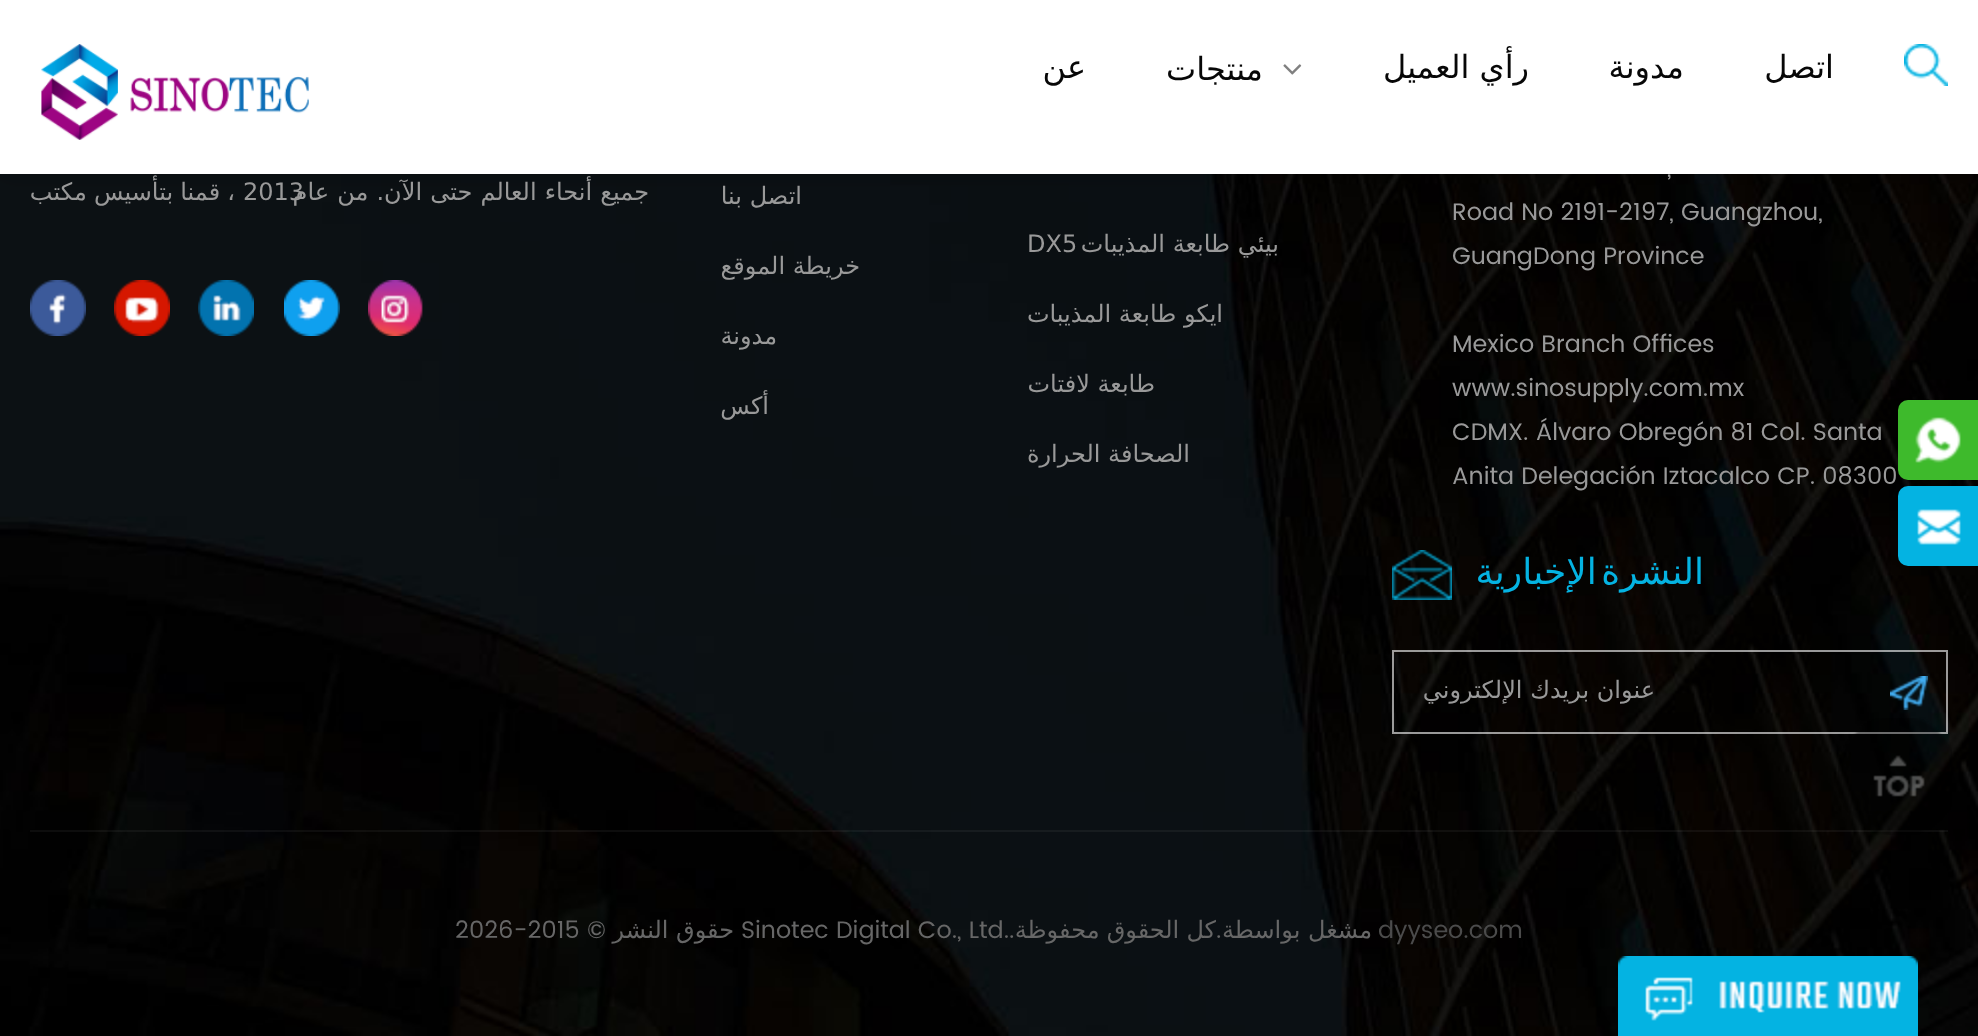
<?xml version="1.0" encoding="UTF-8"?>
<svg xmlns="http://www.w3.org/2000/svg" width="1978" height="1036">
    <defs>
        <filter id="blur1" x="-50%" y="-200%" width="200%" height="500%"><feGaussianBlur stdDeviation="12"/></filter>
    </defs>
    <rect width="100%" height="100%" fill="#FFFFFF"/>
    <image x="0" y="174" width="1978" height="862" href="img_06.png"/>
    <rect x="0" y="0" width="1978" height="174" fill="#000000" fill-opacity="0.2" filter="url(#blur1)"/>
    <rect x="0" y="0" width="1978" height="174" fill="#FFFFFF"/>
    <image x="1904" y="44" width="44" height="42" href="img_01.png"/>
    <text x="1834" y="78" font-family="DejaVu Sans" font-size="32" direction="rtl" fill="#070707">اتصل</text>
    <text x="1684" y="78" font-family="DejaVu Sans" font-size="32" direction="rtl" fill="#070707">مدونة</text>
    <text x="1529" y="78" font-family="DejaVu Sans" font-size="32" direction="rtl" fill="#070707">رأي العميل</text>
    <image x="1283" y="64" width="19" height="11" href="img_02.png"/>
    <text x="1263" y="80" font-family="DejaVu Sans" font-size="32" direction="rtl" fill="#070707">منتجات</text>
    <text x="1086" y="78" font-family="DejaVu Sans" font-size="32" direction="rtl" fill="#070707">عن</text>
    <image x="41" y="44" width="268" height="96" href="img_03.png"/>
    <rect x="1898" y="400" width="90" height="80" rx="10" fill="#3EBA2C"/>
    <image x="1915" y="417" width="46" height="46" href="img_04.png"/>
    <rect x="1898" y="486" width="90" height="80" rx="10" fill="#04B3E2"/>
    <image x="1917" y="509" width="44" height="36" href="img_05.png"/>
    <text x="1667" y="176" font-family="Poppins" font-size="24" fill="#999999">,</text>
    <text font-family="Poppins" font-size="24" fill="#999999">
        <tspan x="1452" y="220">Road No 2191-2197, Guangzhou,</tspan>
        <tspan x="1452" y="264">GuangDong Province</tspan>
    </text>
    <text font-family="Poppins" font-size="24" fill="#999999">
        <tspan x="1452" y="352">Mexico Branch Offices</tspan>
        <tspan x="1452" y="396">www.sinosupply.com.mx</tspan>
        <tspan x="1452" y="440">CDMX. Álvaro Obregón 81 Col. Santa</tspan>
        <tspan x="1452" y="484">Anita Delegación Iztacalco CP. 08300</tspan>
    </text>
    <image x="1392" y="550" width="60" height="50" href="img_07.png"/>
    <text x="1704" y="584" word-spacing="-7" font-family="DejaVu Sans" font-size="36" direction="rtl" fill="#04B3E2">النشرة الإخبارية</text>
    <rect x="1393" y="651" width="554" height="82" fill="none" stroke="#FFFFFF" stroke-opacity="0.6" stroke-width="2"/>
    <image x="1890" y="676" width="38" height="34" href="img_08.png"/>
    <text x="1655" y="698" font-family="DejaVu Sans" font-size="24" direction="rtl" fill="#999999">عنوان بريدك الإلكتروني</text>
    <text x="1279" y="252" font-family="DejaVu Sans" font-size="24" direction="rtl" fill="#999999">بيئي طابعة المذيبات</text>
    <text x="1027" y="252" font-family="DejaVu Sans" font-size="24" fill="#999999">DX5</text>
    <text x="1223" y="322" font-family="DejaVu Sans" font-size="24" direction="rtl" fill="#999999">ايكو طابعة المذيبات</text>
    <text x="1155" y="392" font-family="DejaVu Sans" font-size="24" direction="rtl" fill="#999999">طابعة لافتات</text>
    <text x="1190" y="462" font-family="DejaVu Sans" font-size="24" direction="rtl" fill="#999999">الصحافة الحرارة</text>
    <text x="802" y="204" font-family="DejaVu Sans" font-size="24" direction="rtl" fill="#999999">اتصل بنا</text>
    <text x="860" y="274" font-family="DejaVu Sans" font-size="24" direction="rtl" fill="#999999">خريطة الموقع</text>
    <text x="777" y="344" font-family="DejaVu Sans" font-size="24" direction="rtl" fill="#999999">مدونة</text>
    <text x="769" y="414" font-family="DejaVu Sans" font-size="24" direction="rtl" fill="#999999">أكس</text>
    <text x="243" y="200" font-family="DejaVu Sans" font-size="24" fill="#999999">2013</text>
    <text x="649" y="200" word-spacing="0.5" font-family="DejaVu Sans" font-size="24" direction="rtl" fill="#999999">جميع أنحاء العالم حتى الآن. من عام</text>
    <text x="235" y="200" word-spacing="-0.5" font-family="DejaVu Sans" font-size="24" direction="rtl" fill="#999999">، قمنا بتأسيس مكتب</text>
    <image x="368" y="280" width="55" height="56" href="img_09.png"/>
    <image x="284" y="280" width="56" height="56" href="img_10.png"/>
    <image x="198" y="280" width="56" height="56" href="img_11.png"/>
    <image x="114" y="280" width="56" height="56" href="img_12.png"/>
    <image x="30" y="280" width="56" height="56" href="img_13.png"/>
    <rect x="30" y="830" width="1918" height="2" fill="#FFFFFF" fill-opacity="0.05"/>
    <text x="1378" y="938" font-family="Poppins" font-size="24" fill="#4B4B4B">dyyseo.com</text>
    <text x="1372" y="938" font-family="DejaVu Sans" font-size="24" direction="rtl" fill="#676767">مشغل بواسطة</text>
    <text x="1216" y="938" font-family="Poppins" font-size="24" fill="#676767">.</text>
    <text x="1216" y="938" word-spacing="-0.5" font-family="DejaVu Sans" font-size="24" direction="rtl" fill="#676767">كل الحقوق محفوظة</text>
    <text x="741" y="938" font-family="Poppins" font-size="24" fill="#676767">Sinotec Digital Co., Ltd..</text>
    <text x="734" y="938" font-family="DejaVu Sans" font-size="24" direction="rtl" fill="#676767">حقوق النشر</text>
    <text x="606" y="938" font-family="Poppins" font-size="24" direction="rtl" fill="#676767">©</text>
    <text x="455" y="938" font-family="Poppins" font-size="24" fill="#676767">2026-2015</text>
    <image x="1838" y="718" width="114" height="117" href="img_14.png"/>
    <image x="1618" y="956" width="300" height="80" href="img_15.png"/>
</svg>
